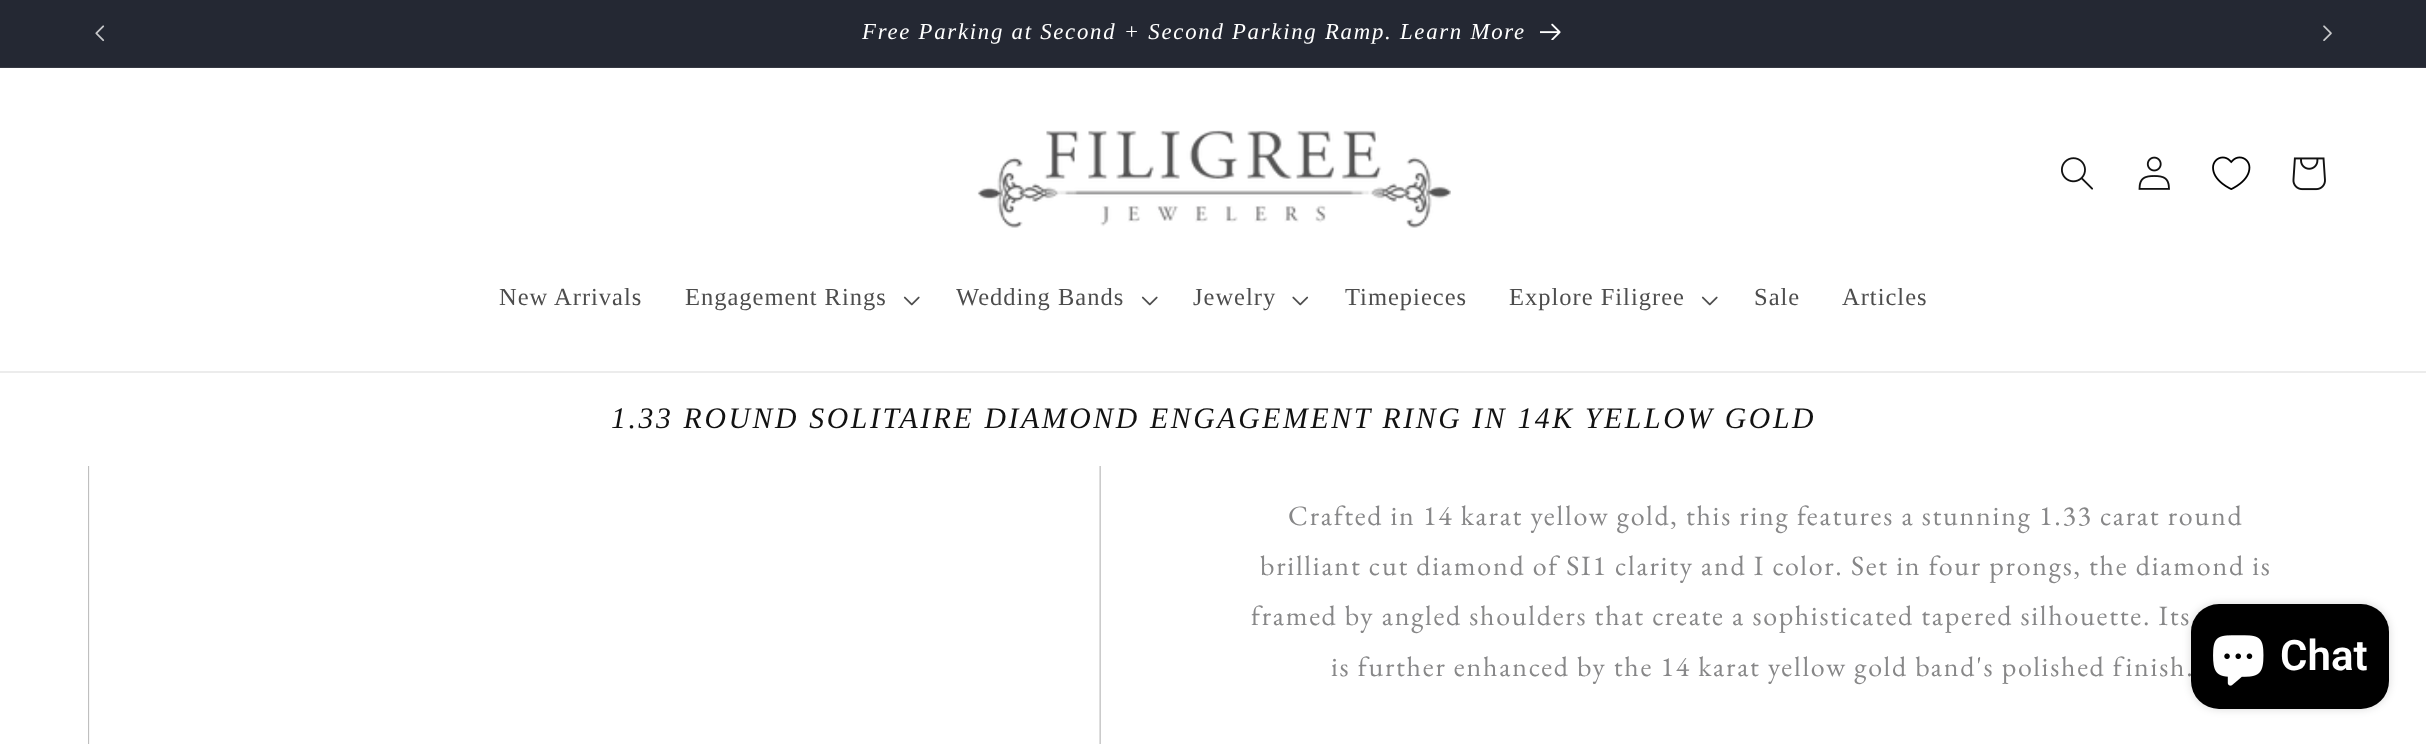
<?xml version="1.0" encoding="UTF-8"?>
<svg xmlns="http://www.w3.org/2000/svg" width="2426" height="744">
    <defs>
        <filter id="blur1" x="-50%" y="-200%" width="200%" height="500%"><feGaussianBlur stdDeviation="4.5"/></filter>
    </defs>
    <rect width="100%" height="100%" fill="#FFFFFF"/>
    <rect x="0" y="0" width="2426" height="67" fill="#242833"/>
    <rect x="0" y="67" width="2426" height="1" fill="#363943"/>
    <image x="95" y="25" width="10" height="17" href="img_01.png"/>
    <text x="862" y="39" font-family="Liberation Serif" font-size="22.75" font-style="italic" letter-spacing="1.75" fill="#FFFFFF">Free Parking at Second + Second Parking Ramp. Learn More</text>
    <image x="1540" y="23" width="21" height="17" href="img_02.png"/>
    <image x="2323" y="25" width="9" height="16" href="img_03.png"/>
    <rect x="0" y="371" width="2426" height="2" fill="#ECECEC"/>
    <image x="977" y="130" width="474" height="98" href="img_04.png"/>
    <image x="2061" y="157" width="32" height="33" href="img_05.png"/>
    <image x="2138" y="156" width="32" height="34" href="img_06.png"/>
    <image x="2212" y="156" width="39" height="34" href="img_07.png"/>
    <image x="2292" y="157" width="34" height="34" href="img_08.png"/>
    <text x="499" y="305" font-family="Liberation Serif" font-size="24.5" letter-spacing="1" fill="#4D4D4D">New Arrivals</text>
    <text x="685" y="305" font-family="Liberation Serif" font-size="24.5" letter-spacing="1" fill="#4D4D4D">Engagement Rings</text>
    <image x="903" y="296" width="17" height="10" href="img_09.png"/>
    <text x="956" y="305" font-family="Liberation Serif" font-size="24.5" letter-spacing="1" fill="#4D4D4D">Wedding Bands</text>
    <image x="1141" y="296" width="17" height="10" href="img_09.png"/>
    <text x="1193" y="305" font-family="Liberation Serif" font-size="24.5" letter-spacing="1" fill="#4D4D4D">Jewelry</text>
    <image x="1292" y="296" width="17" height="10" href="img_10.png"/>
    <text x="1345" y="305" font-family="Liberation Serif" font-size="24.5" letter-spacing="1" fill="#4D4D4D">Timepieces</text>
    <text x="1509" y="305" font-family="Liberation Serif" font-size="24.5" letter-spacing="1" fill="#4D4D4D">Explore Filigree</text>
    <image x="1701" y="296" width="17" height="10" href="img_09.png"/>
    <text x="1754" y="305" font-family="Liberation Serif" font-size="24.5" letter-spacing="1" fill="#4D4D4D">Sale</text>
    <text x="1842" y="305" font-family="Liberation Serif" font-size="24.5" letter-spacing="1" fill="#4D4D4D">Articles</text>
    <text x="611" y="428" font-family="Liberation Serif" font-size="29.75" font-style="italic" letter-spacing="2.62" fill="#121212">1.33 ROUND SOLITAIRE DIAMOND ENGAGEMENT RING IN 14K YELLOW GOLD</text>
    <image x="88" y="466" width="1013" height="278" href="img_11.png"/>
    <text x="1288" y="525" font-family="EB Garamond" font-size="28" letter-spacing="1.75" fill="#878788">Crafted in 14 karat yellow gold, this ring features a stunning 1.33 carat round</text>
    <text x="1260" y="575" font-family="EB Garamond" font-size="28" letter-spacing="1.75" fill="#878788">brilliant cut diamond of SI1 clarity and I color. Set in four prongs, the diamond is</text>
    <text x="1251" y="625" font-family="EB Garamond" font-size="28" letter-spacing="1.75" fill="#878788">framed by angled shoulders that create a sophisticated tapered silhouette. Its</text>
    <text x="1331" y="676" font-family="EB Garamond" font-size="28" letter-spacing="1.75" fill="#878788">is further enhanced by the 14 karat yellow gold band's polished finish.</text>
    <rect x="2191" y="604" width="198" height="105" rx="28" fill="#000000" fill-opacity="0.15" filter="url(#blur1)"/>
    <rect x="2191" y="604" width="198" height="105" rx="28" fill="#000000"/>
    <image x="2213" y="635" width="51" height="51" href="img_12.png"/>
    <text x="2280" y="670" font-family="Roboto" font-size="42" font-weight="600" fill="#FFFFFF">Chat</text>
</svg>
